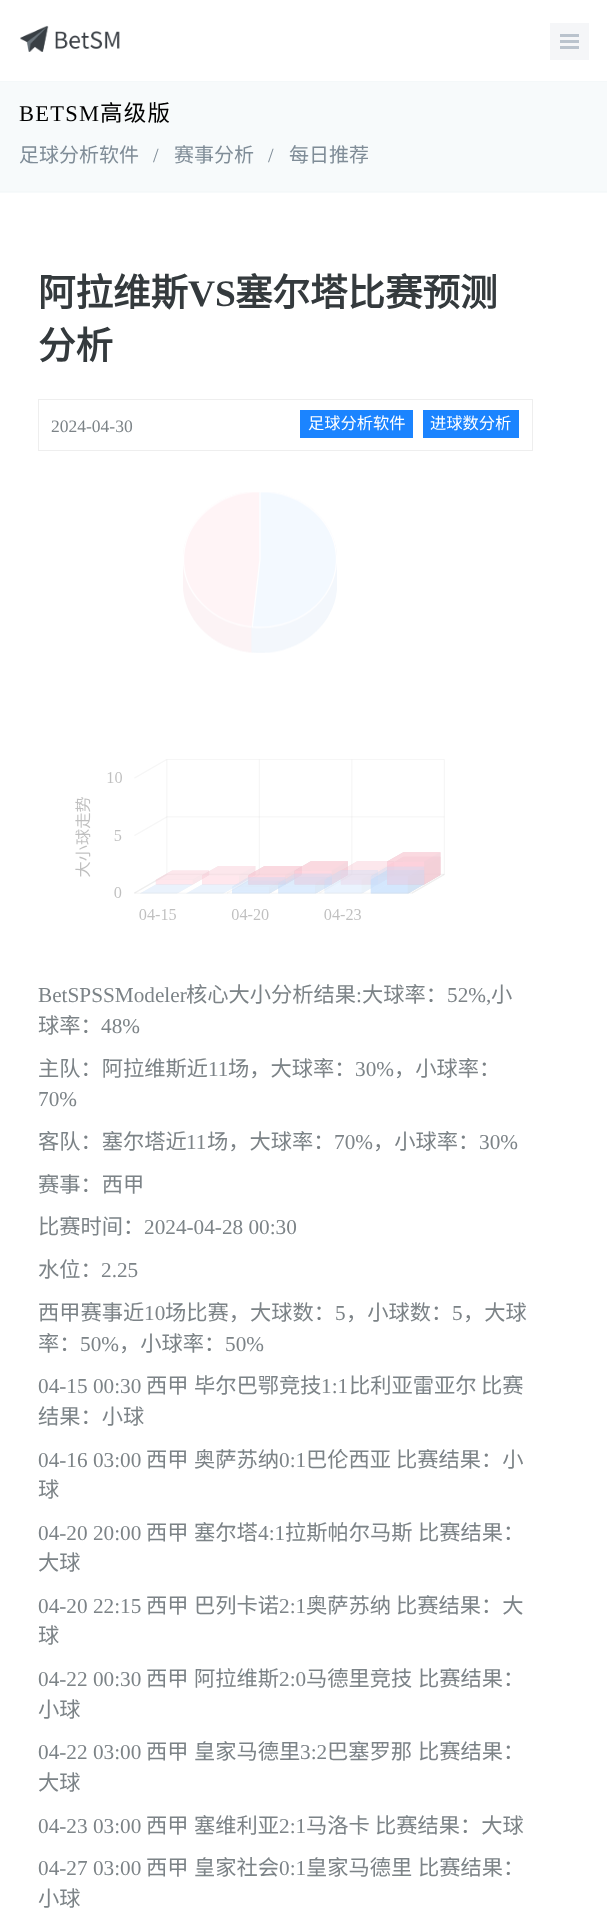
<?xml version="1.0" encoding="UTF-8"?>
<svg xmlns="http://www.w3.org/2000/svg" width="607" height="1915">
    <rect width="100%" height="100%" fill="#FFFFFF"/>
    <image x="20" y="25" width="100" height="27" href="img_01.png"/>
    <rect x="550" y="23" width="39" height="37" fill="#F5F6F8"/>
    <rect x="560" y="34" width="19" height="3" fill="#BAC3CD"/>
    <rect x="560" y="40" width="19" height="3" fill="#BAC3CD"/>
    <rect x="560" y="46" width="19" height="3" fill="#BAC3CD"/>
    <rect x="0" y="82" width="607" height="111" fill="#F7FAFB"/>
    <rect x="0" y="81" width="607" height="1" fill="#F4F8F9"/>
    <rect x="0" y="191" width="607" height="1" fill="#F4F8F9"/>
    <text x="19" y="121" font-family="Liberation Serif" font-size="22.5" letter-spacing="1.25" fill="#000000">BETSM</text>
    <text x="100" y="121" font-family="Noto Sans CJK SC" font-size="22.5" letter-spacing="1.25" fill="#000000">高级版</text>
    <text x="19" y="162" font-family="Noto Sans CJK SC" font-size="20" fill="#7F8C97">足球分析软件</text>
    <text x="153" y="162" font-family="Liberation Serif" font-size="20" fill="#7F8C97">/</text>
    <text x="174" y="162" font-family="Noto Sans CJK SC" font-size="20" fill="#7F8C97">赛事分析</text>
    <text x="268" y="162" font-family="Liberation Serif" font-size="20" fill="#7F8C97">/</text>
    <text x="289" y="162" font-family="Noto Sans CJK SC" font-size="20" fill="#7F8C97">每日推荐</text>
    <text x="38" y="306" font-family="Noto Sans CJK SC" font-size="37.5" font-weight="700" fill="#343A3D">阿拉维斯</text>
    <text x="188" y="306" font-family="Liberation Serif" font-size="37.5" font-weight="700" fill="#343A3D">VS</text>
    <text x="235" y="306" font-family="Noto Sans CJK SC" font-size="37.5" font-weight="700" fill="#343A3D">塞尔塔比赛预测</text>
    <text x="38" y="359" font-family="Noto Sans CJK SC" font-size="37.5" font-weight="700" fill="#343A3D">分析</text>
    <rect x="38.5" y="399.5" width="494" height="51" fill="none" stroke="#EEEEEE"/>
    <text x="51" y="432" font-family="Liberation Serif" font-size="17.5" fill="#7C8387">2024-04-30</text>
    <rect x="300" y="410" width="113" height="28" fill="#1B84FF"/>
    <text x="308" y="429" font-family="Noto Sans CJK SC" font-size="16.25" fill="#FFFFFF">足球分析软件</text>
    <rect x="423" y="410" width="96" height="28" fill="#1B84FF"/>
    <text x="430" y="429" font-family="Noto Sans CJK SC" font-size="16.25" fill="#FFFFFF">进球数分析</text>
    <image x="183" y="492" width="154" height="161" href="img_02.png"/>
    <image x="75" y="759" width="370" height="161" href="img_03.png"/>
    <text x="38" y="1002" font-family="Liberation Serif" font-size="21.25" fill="#7C8387">BetSPSSModeler</text>
    <text x="186" y="1002" font-family="Noto Sans CJK SC" font-size="21.25" fill="#7C8387">核心大小分析结果</text>
    <text x="356" y="1002" font-family="Liberation Serif" font-size="21.25" fill="#7C8387">:</text>
    <text x="362" y="1002" font-family="Noto Sans CJK SC" font-size="21.25" fill="#7C8387">大球率：</text>
    <text x="447" y="1002" font-family="Liberation Serif" font-size="21.25" fill="#7C8387">52%,</text>
    <text x="491" y="1002" font-family="Noto Sans CJK SC" font-size="21.25" fill="#7C8387">小</text>
    <text x="38" y="1033" font-family="Noto Sans CJK SC" font-size="21.25" fill="#7C8387">球率：</text>
    <text x="101" y="1033" font-family="Liberation Serif" font-size="21.25" fill="#7C8387">48%</text>
    <text x="38" y="1076" font-family="Noto Sans CJK SC" font-size="21.25" fill="#7C8387">主队：阿拉维斯近</text>
    <text x="208" y="1076" font-family="Liberation Serif" font-size="21.25" fill="#7C8387">11</text>
    <text x="228" y="1076" font-family="Noto Sans CJK SC" font-size="21.25" fill="#7C8387">场，大球率：</text>
    <text x="355" y="1076" font-family="Liberation Serif" font-size="21.25" fill="#7C8387">30%</text>
    <text x="394" y="1076" font-family="Noto Sans CJK SC" font-size="21.25" fill="#7C8387">，小球率：</text>
    <text x="38" y="1106" font-family="Liberation Serif" font-size="21.25" fill="#7C8387">70%</text>
    <text x="38" y="1149" font-family="Noto Sans CJK SC" font-size="21.25" fill="#7C8387">客队：塞尔塔近</text>
    <text x="186" y="1149" font-family="Liberation Serif" font-size="21.25" fill="#7C8387">11</text>
    <text x="207" y="1149" font-family="Noto Sans CJK SC" font-size="21.25" fill="#7C8387">场，大球率：</text>
    <text x="334" y="1149" font-family="Liberation Serif" font-size="21.25" fill="#7C8387">70%</text>
    <text x="373" y="1149" font-family="Noto Sans CJK SC" font-size="21.25" fill="#7C8387">，小球率：</text>
    <text x="479" y="1149" font-family="Liberation Serif" font-size="21.25" fill="#7C8387">30%</text>
    <text font-family="Noto Sans CJK SC" font-size="21.25" fill="#7C8387">
        <tspan x="38" y="1192">赛事：西甲</tspan>
        <tspan x="38" y="1234">比赛时间：</tspan>
    </text>
    <text x="144" y="1234" font-family="Liberation Serif" font-size="21.25" fill="#7C8387">2024-04-28 00:30</text>
    <text x="38" y="1277" font-family="Noto Sans CJK SC" font-size="21.25" fill="#7C8387">水位：</text>
    <text x="101" y="1277" font-family="Liberation Serif" font-size="21.25" fill="#7C8387">2.25</text>
    <text x="38" y="1320" font-family="Noto Sans CJK SC" font-size="21.25" fill="#7C8387">西甲赛事近</text>
    <text x="144" y="1320" font-family="Liberation Serif" font-size="21.25" fill="#7C8387">10</text>
    <text x="165" y="1320" font-family="Noto Sans CJK SC" font-size="21.25" fill="#7C8387">场比赛，大球数：</text>
    <text x="335" y="1320" font-family="Liberation Serif" font-size="21.25" fill="#7C8387">5</text>
    <text x="346" y="1320" font-family="Noto Sans CJK SC" font-size="21.25" fill="#7C8387">，小球数：</text>
    <text x="452" y="1320" font-family="Liberation Serif" font-size="21.25" fill="#7C8387">5</text>
    <text x="463" y="1320" font-family="Noto Sans CJK SC" font-size="21.25" fill="#7C8387">，大球</text>
    <text x="38" y="1351" font-family="Noto Sans CJK SC" font-size="21.25" fill="#7C8387">率：</text>
    <text x="80" y="1351" font-family="Liberation Serif" font-size="21.25" fill="#7C8387">50%</text>
    <text x="119" y="1351" font-family="Noto Sans CJK SC" font-size="21.25" fill="#7C8387">，小球率：</text>
    <text x="225" y="1351" font-family="Liberation Serif" font-size="21.25" fill="#7C8387">50%</text>
    <text x="38" y="1393" font-family="Liberation Serif" font-size="21.25" fill="#7C8387">04-15 00:30</text>
    <text x="146" y="1393" font-family="Noto Sans CJK SC" font-size="21.25" fill="#7C8387">西甲</text>
    <text x="194" y="1393" font-family="Noto Sans CJK SC" font-size="21.25" fill="#7C8387">毕尔巴鄂竞技</text>
    <text x="321" y="1393" font-family="Liberation Serif" font-size="21.25" fill="#7C8387">1:1</text>
    <text x="349" y="1393" font-family="Noto Sans CJK SC" font-size="21.25" fill="#7C8387">比利亚雷亚尔</text>
    <text x="481" y="1393" font-family="Noto Sans CJK SC" font-size="21.25" fill="#7C8387">比赛</text>
    <text x="38" y="1424" font-family="Noto Sans CJK SC" font-size="21.25" fill="#7C8387">结果：小球</text>
    <text x="38" y="1467" font-family="Liberation Serif" font-size="21.25" fill="#7C8387">04-16 03:00</text>
    <text x="146" y="1467" font-family="Noto Sans CJK SC" font-size="21.25" fill="#7C8387">西甲</text>
    <text x="194" y="1467" font-family="Noto Sans CJK SC" font-size="21.25" fill="#7C8387">奥萨苏纳</text>
    <text x="279" y="1467" font-family="Liberation Serif" font-size="21.25" fill="#7C8387">0:1</text>
    <text x="306" y="1467" font-family="Noto Sans CJK SC" font-size="21.25" fill="#7C8387">巴伦西亚</text>
    <text x="396" y="1467" font-family="Noto Sans CJK SC" font-size="21.25" fill="#7C8387">比赛结果：小</text>
    <text x="38" y="1497" font-family="Noto Sans CJK SC" font-size="21.25" fill="#7C8387">球</text>
    <text x="38" y="1540" font-family="Liberation Serif" font-size="21.25" fill="#7C8387">04-20 20:00</text>
    <text x="146" y="1540" font-family="Noto Sans CJK SC" font-size="21.25" fill="#7C8387">西甲</text>
    <text x="194" y="1540" font-family="Noto Sans CJK SC" font-size="21.25" fill="#7C8387">塞尔塔</text>
    <text x="258" y="1540" font-family="Liberation Serif" font-size="21.25" fill="#7C8387">4:1</text>
    <text x="285" y="1540" font-family="Noto Sans CJK SC" font-size="21.25" fill="#7C8387">拉斯帕尔马斯</text>
    <text x="418" y="1540" font-family="Noto Sans CJK SC" font-size="21.25" fill="#7C8387">比赛结果：</text>
    <text x="38" y="1570" font-family="Noto Sans CJK SC" font-size="21.25" fill="#7C8387">大球</text>
    <text x="38" y="1613" font-family="Liberation Serif" font-size="21.25" fill="#7C8387">04-20 22:15</text>
    <text x="146" y="1613" font-family="Noto Sans CJK SC" font-size="21.25" fill="#7C8387">西甲</text>
    <text x="194" y="1613" font-family="Noto Sans CJK SC" font-size="21.25" fill="#7C8387">巴列卡诺</text>
    <text x="279" y="1613" font-family="Liberation Serif" font-size="21.25" fill="#7C8387">2:1</text>
    <text x="306" y="1613" font-family="Noto Sans CJK SC" font-size="21.25" fill="#7C8387">奥萨苏纳</text>
    <text x="396" y="1613" font-family="Noto Sans CJK SC" font-size="21.25" fill="#7C8387">比赛结果：大</text>
    <text x="38" y="1643" font-family="Noto Sans CJK SC" font-size="21.25" fill="#7C8387">球</text>
    <text x="38" y="1686" font-family="Liberation Serif" font-size="21.25" fill="#7C8387">04-22 00:30</text>
    <text x="146" y="1686" font-family="Noto Sans CJK SC" font-size="21.25" fill="#7C8387">西甲</text>
    <text x="194" y="1686" font-family="Noto Sans CJK SC" font-size="21.25" fill="#7C8387">阿拉维斯</text>
    <text x="279" y="1686" font-family="Liberation Serif" font-size="21.25" fill="#7C8387">2:0</text>
    <text x="306" y="1686" font-family="Noto Sans CJK SC" font-size="21.25" fill="#7C8387">马德里竞技</text>
    <text x="418" y="1686" font-family="Noto Sans CJK SC" font-size="21.25" fill="#7C8387">比赛结果：</text>
    <text x="38" y="1717" font-family="Noto Sans CJK SC" font-size="21.25" fill="#7C8387">小球</text>
    <text x="38" y="1759" font-family="Liberation Serif" font-size="21.25" fill="#7C8387">04-22 03:00</text>
    <text x="146" y="1759" font-family="Noto Sans CJK SC" font-size="21.25" fill="#7C8387">西甲</text>
    <text x="194" y="1759" font-family="Noto Sans CJK SC" font-size="21.25" fill="#7C8387">皇家马德里</text>
    <text x="300" y="1759" font-family="Liberation Serif" font-size="21.25" fill="#7C8387">3:2</text>
    <text x="327" y="1759" font-family="Noto Sans CJK SC" font-size="21.25" fill="#7C8387">巴塞罗那</text>
    <text x="418" y="1759" font-family="Noto Sans CJK SC" font-size="21.25" fill="#7C8387">比赛结果：</text>
    <text x="38" y="1790" font-family="Noto Sans CJK SC" font-size="21.25" fill="#7C8387">大球</text>
    <text x="38" y="1833" font-family="Liberation Serif" font-size="21.25" fill="#7C8387">04-23 03:00</text>
    <text x="146" y="1833" font-family="Noto Sans CJK SC" font-size="21.25" fill="#7C8387">西甲</text>
    <text x="194" y="1833" font-family="Noto Sans CJK SC" font-size="21.25" fill="#7C8387">塞维利亚</text>
    <text x="279" y="1833" font-family="Liberation Serif" font-size="21.25" fill="#7C8387">2:1</text>
    <text x="306" y="1833" font-family="Noto Sans CJK SC" font-size="21.25" fill="#7C8387">马洛卡</text>
    <text x="375" y="1833" font-family="Noto Sans CJK SC" font-size="21.25" fill="#7C8387">比赛结果：大球</text>
    <text x="38" y="1875" font-family="Liberation Serif" font-size="21.25" fill="#7C8387">04-27 03:00</text>
    <text x="146" y="1875" font-family="Noto Sans CJK SC" font-size="21.25" fill="#7C8387">西甲</text>
    <text x="194" y="1875" font-family="Noto Sans CJK SC" font-size="21.25" fill="#7C8387">皇家社会</text>
    <text x="279" y="1875" font-family="Liberation Serif" font-size="21.25" fill="#7C8387">0:1</text>
    <text x="306" y="1875" font-family="Noto Sans CJK SC" font-size="21.25" fill="#7C8387">皇家马德里</text>
    <text x="418" y="1875" font-family="Noto Sans CJK SC" font-size="21.25" fill="#7C8387">比赛结果：</text>
    <text x="38" y="1906" font-family="Noto Sans CJK SC" font-size="21.25" fill="#7C8387">小球</text>
</svg>
